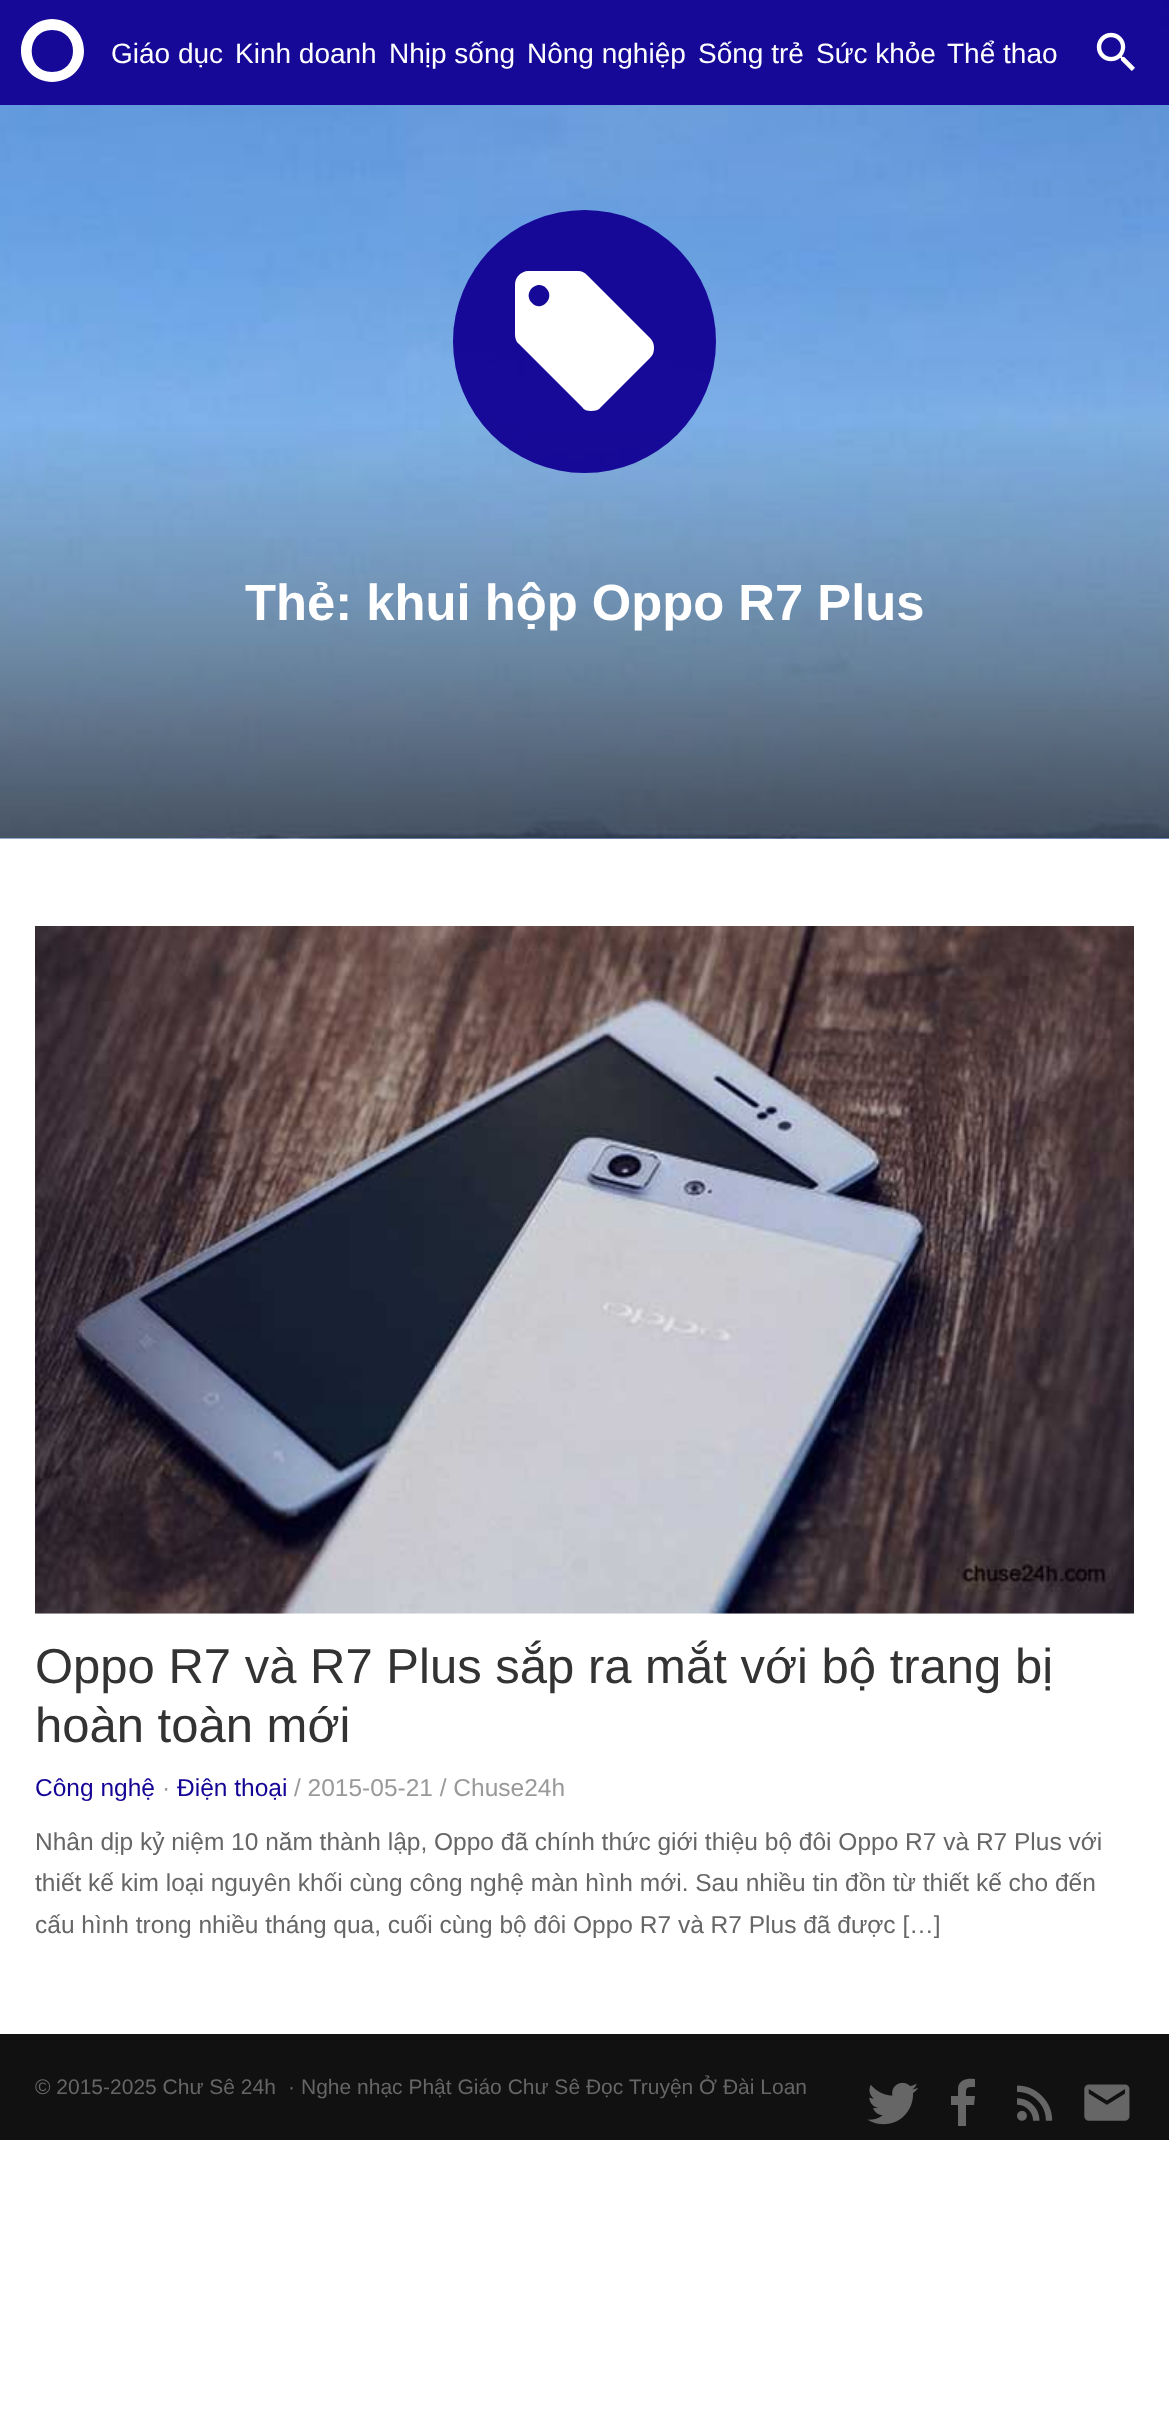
<?xml version="1.0" encoding="UTF-8"?>
<svg xmlns="http://www.w3.org/2000/svg" width="1169" height="2422">
    <rect width="100%" height="100%" fill="#FFFFFF"/>
    <image x="0" y="0" width="1169" height="839" href="img_02.png"/>
    <rect x="0" y="0" width="1169" height="105" fill="#140495" fill-opacity="0.97"/>
    <path d="M 52 19 C 35 19 21 33 21 51 C 21 68 35 82 52 82 C 70 82 84 68 84 51 C 84 33 70 19 52 19 Z M 52 72 C 25 72 25 30 52 30 C 80 30 80 72 52 72 Z" fill="#FFFFFF"/>
    <text x="111" y="63" font-family="Liberation Sans" font-size="28" fill="#FFFFFF">Giáo dục</text>
    <text x="235" y="63" font-family="Liberation Sans" font-size="28" fill="#FFFFFF">Kinh doanh</text>
    <text x="389" y="63" font-family="Liberation Sans" font-size="28" fill="#FFFFFF">Nhịp sống</text>
    <text x="527" y="63" font-family="Liberation Sans" font-size="28" fill="#FFFFFF">Nông nghiệp</text>
    <text x="698" y="63" font-family="Liberation Sans" font-size="28" fill="#FFFFFF">Sống trẻ</text>
    <text x="816" y="63" font-family="Liberation Sans" font-size="28" fill="#FFFFFF">Sức khỏe</text>
    <text x="947" y="63" font-family="Liberation Sans" font-size="28" fill="#FFFFFF">Thể thao</text>
    <image x="1096" y="32" width="39" height="39" href="img_01.png"/>
    <circle cx="584.5" cy="341.5" r="131.5" fill="#140495" fill-opacity="0.97"/>
    <path d="M 532 303 C 541 313 556 298 546 288 C 537 279 522 293 532 303 Z M 650 338 C 653 341 654 344 654 348 C 654 352 653 355 650 358 L 601 407 C 599 410 595 411 591 411 C 587 411 584 410 582 407 L 519 344 C 516 342 515 338 515 334 V 285 C 515 281 516 278 519 275 C 521 273 525 271 528 271 H 578 C 582 271 585 273 587 275 Z" fill="#FFFFFF"/>
    <text x="245" y="620" font-family="Liberation Sans" font-size="50.75" font-weight="700" fill="#FFFFFF">Thẻ: khui hộp Oppo R7 Plus</text>
    <image x="35" y="926" width="1099" height="688" href="img_03.png"/>
    <text font-family="Liberation Sans" font-size="49" fill="#333333">
        <tspan x="35" y="1683">Oppo R7 và R7 Plus sắp ra mắt với bộ trang bị</tspan>
        <tspan x="35" y="1742">hoàn toàn mới</tspan>
    </text>
    <text x="35" y="1796" font-family="Liberation Sans" font-size="24.5" fill="#140495">Công nghệ</text>
    <text x="162" y="1796" font-family="Liberation Sans" font-size="24.5" fill="#999999">·</text>
    <text x="177" y="1796" font-family="Liberation Sans" font-size="24.5" fill="#140495">Điện thoại</text>
    <text x="294" y="1796" font-family="Liberation Sans" font-size="24.5" fill="#999999">/ 2015-05-21 / Chuse24h</text>
    <text font-family="Liberation Sans" font-size="24.5" fill="#666666">
        <tspan x="35" y="1850">Nhân dịp kỷ niệm 10 năm thành lập, Oppo đã chính thức giới thiệu bộ đôi Oppo R7 và R7 Plus với</tspan>
        <tspan x="35" y="1891">thiết kế kim loại nguyên khối cùng công nghệ màn hình mới. Sau nhiều tin đồn từ thiết kế cho đến</tspan>
        <tspan x="35" y="1933">cấu hình trong nhiều tháng qua, cuối cùng bộ đôi Oppo R7 và R7 Plus đã được […]</tspan>
    </text>
    <rect x="0" y="2034" width="1169" height="106" fill="#111111"/>
    <text x="35" y="2094" font-family="Liberation Sans" font-size="21" fill="#666666">© 2015-2025 Chư Sê 24h</text>
    <text x="288" y="2094" font-family="Liberation Sans" font-size="21" fill="#666666">·</text>
    <text x="301" y="2094" font-family="Liberation Sans" font-size="21" fill="#666666">Nghe nhạc Phật Giáo Chư Sê Đọc Truyện Ở Đài Loan</text>
    <image x="867" y="2082" width="51" height="43" href="img_04.png"/>
    <path d="M 975 2079 V 2087 C 966 2087 966 2087 966 2096 H 975 L 974 2105 H 966 V 2126 H 958 V 2105 H 951 V 2096 H 958 V 2088 C 959 2079 968 2078 975 2079 Z" fill="#666666"/>
    <image x="1017" y="2085" width="36" height="36" href="img_05.png"/>
    <image x="1084" y="2084" width="46" height="37" href="img_06.png"/>
</svg>
